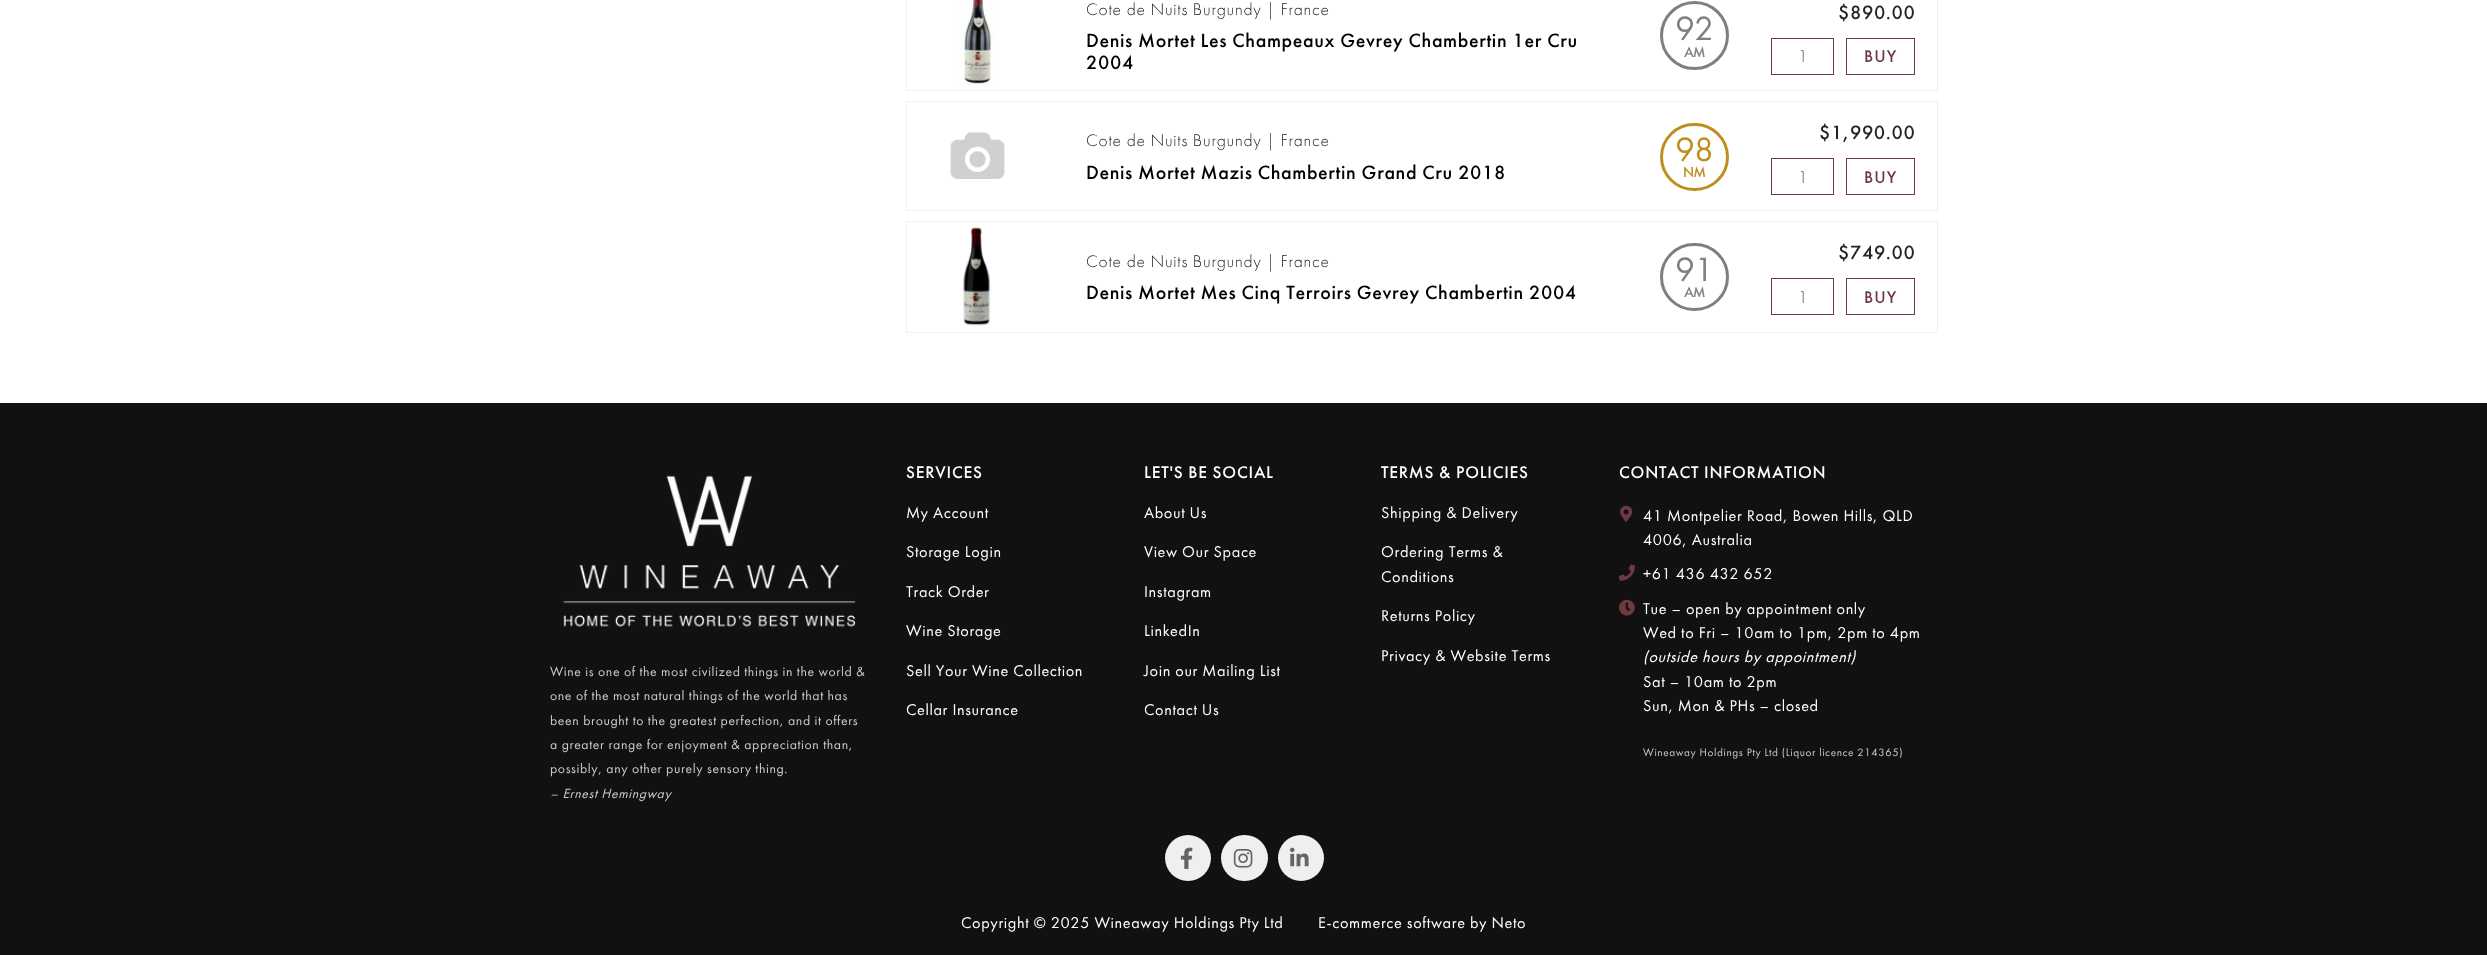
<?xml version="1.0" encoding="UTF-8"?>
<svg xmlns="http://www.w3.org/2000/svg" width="2487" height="955">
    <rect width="100%" height="100%" fill="#FFFFFF"/>
    <rect x="906.5" y="-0.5" width="1031" height="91" fill="none" stroke="#F0F0F0"/>
    <image x="959" y="0" width="35" height="85" href="img_01.png"/>
    <text x="1086" y="15" font-family="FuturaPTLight" font-size="17.5" letter-spacing="0.75" fill="#1A1A1A">Cote de Nuits Burgundy | France</text>
    <text font-family="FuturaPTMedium" font-size="20" letter-spacing="0.6" fill="#000000">
        <tspan x="1086" y="47">Denis Mortet Les Champeaux Gevrey Chambertin 1er Cru</tspan>
        <tspan x="1086" y="69">2004</tspan>
    </text>
    <circle cx="1694.5" cy="35.5" r="33" fill="none" stroke="#7F7F7F" stroke-width="3"/>
    <text x="1675" y="40" font-family="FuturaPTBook" font-size="35" letter-spacing="-1" fill="#7F7F7F">92</text>
    <text x="1684" y="57" font-family="FuturaPTMedium" font-size="15" letter-spacing="-1" fill="#7F7F7F">AM</text>
    <text x="1838" y="19" font-family="FuturaPTMedium" font-size="20" letter-spacing="0.6" fill="#212529">$890.00</text>
    <rect x="1771.5" y="38.5" width="62" height="36" fill="none" stroke="#6F3944"/>
    <text x="1798" y="62" font-family="FuturaPTLight" font-size="17.5" fill="#495057">1</text>
    <rect x="1846.5" y="38.5" width="68" height="36" fill="none" stroke="#6F3944"/>
    <text x="1864" y="62" font-family="FuturaPTMedium" font-size="17.5" letter-spacing="1" fill="#6F3944">BUY</text>
    <rect x="906.5" y="101.5" width="1031" height="109" fill="none" stroke="#F0F0F0"/>
    <image x="950" y="132" width="55" height="47" href="img_02.png"/>
    <text x="1086" y="146" font-family="FuturaPTLight" font-size="17.5" letter-spacing="0.75" fill="#1A1A1A">Cote de Nuits Burgundy | France</text>
    <text x="1086" y="179" font-family="FuturaPTMedium" font-size="20" letter-spacing="0.6" fill="#000000">Denis Mortet Mazis Chambertin Grand Cru 2018</text>
    <rect x="1661.5" y="124.5" width="66" height="65" rx="32.5" fill="none" stroke="#BE8F1F" stroke-width="3"/>
    <text x="1675" y="161" font-family="FuturaPTBook" font-size="35" letter-spacing="-1" fill="#BE8F1F">98</text>
    <text x="1683" y="177" font-family="FuturaPTMedium" font-size="15" letter-spacing="-1" fill="#BE8F1F">NM</text>
    <text x="1819" y="139" font-family="FuturaPTMedium" font-size="20" letter-spacing="0.6" fill="#212529">$1,990.00</text>
    <rect x="1771.5" y="158.5" width="62" height="36" fill="none" stroke="#6F3944"/>
    <text x="1798" y="183" font-family="FuturaPTLight" font-size="17.5" fill="#495057">1</text>
    <rect x="1846.5" y="158.5" width="68" height="36" fill="none" stroke="#6F3944"/>
    <text x="1864" y="183" font-family="FuturaPTMedium" font-size="17.5" letter-spacing="1" fill="#6F3944">BUY</text>
    <rect x="906.5" y="221.5" width="1031" height="111" fill="none" stroke="#F0F0F0"/>
    <image x="963" y="227" width="28" height="99" href="img_03.png"/>
    <text x="1086" y="267" font-family="FuturaPTLight" font-size="17.5" letter-spacing="0.75" fill="#1A1A1A">Cote de Nuits Burgundy | France</text>
    <text x="1086" y="299" font-family="FuturaPTMedium" font-size="20" letter-spacing="0.6" fill="#000000">Denis Mortet Mes Cinq Terroirs Gevrey Chambertin 2004</text>
    <rect x="1661.5" y="244.5" width="66" height="65" rx="32.5" fill="none" stroke="#7F7F7F" stroke-width="3"/>
    <text x="1675" y="281" font-family="FuturaPTBook" font-size="35" letter-spacing="-1" fill="#7F7F7F">91</text>
    <text x="1684" y="297" font-family="FuturaPTMedium" font-size="15" letter-spacing="-1" fill="#7F7F7F">AM</text>
    <text x="1838" y="259" font-family="FuturaPTMedium" font-size="20" letter-spacing="0.6" fill="#212529">$749.00</text>
    <rect x="1771.5" y="278.5" width="62" height="36" fill="none" stroke="#6F3944"/>
    <text x="1798" y="303" font-family="FuturaPTLight" font-size="17.5" fill="#495057">1</text>
    <rect x="1846.5" y="278.5" width="68" height="36" fill="none" stroke="#6F3944"/>
    <text x="1864" y="303" font-family="FuturaPTMedium" font-size="17.5" letter-spacing="1" fill="#6F3944">BUY</text>
    <rect x="0" y="403" width="2487" height="552" fill="#111111"/>
    <image x="563" y="475" width="293" height="152" href="img_04.png"/>
    <text font-family="FuturaPTBook" font-size="13.75" letter-spacing="0.6" fill="#CCCCCC">
        <tspan x="550" y="676">Wine is one of the most civilized things in the world &amp;</tspan>
        <tspan x="550" y="700">one of the most natural things of the world that has</tspan>
        <tspan x="550" y="725">been brought to the greatest perfection, and it offers</tspan>
        <tspan x="550" y="749">a greater range for enjoyment &amp; appreciation than,</tspan>
        <tspan x="550" y="773">possibly, any other purely sensory thing.</tspan>
    </text>
    <text x="550" y="798" font-family="FuturaPTBook" font-size="13.75" font-style="italic" letter-spacing="0.6" fill="#CCCCCC">– Ernest Hemingway</text>
    <text x="906" y="478" font-family="FuturaPTMedium" font-size="17.5" letter-spacing="0.75" fill="#FFFFFF">SERVICES</text>
    <text x="906" y="518" font-family="FuturaPTBook" font-size="16.25" letter-spacing="0.6" fill="#FFFFFF">My Account</text>
    <text x="906" y="557" font-family="FuturaPTBook" font-size="16.25" letter-spacing="0.6" fill="#FFFFFF">Storage Login</text>
    <text x="906" y="597" font-family="FuturaPTBook" font-size="16.25" letter-spacing="0.6" fill="#FFFFFF">Track Order</text>
    <text x="906" y="636" font-family="FuturaPTBook" font-size="16.25" letter-spacing="0.6" fill="#FFFFFF">Wine Storage</text>
    <text x="906" y="676" font-family="FuturaPTBook" font-size="16.25" letter-spacing="0.6" fill="#FFFFFF">Sell Your Wine Collection</text>
    <text x="906" y="715" font-family="FuturaPTBook" font-size="16.25" letter-spacing="0.6" fill="#FFFFFF">Cellar Insurance</text>
    <text x="1144" y="478" font-family="FuturaPTMedium" font-size="17.5" letter-spacing="0.75" fill="#FFFFFF">LET'S BE SOCIAL</text>
    <text x="1144" y="518" font-family="FuturaPTBook" font-size="16.25" letter-spacing="0.6" fill="#FFFFFF">About Us</text>
    <text x="1144" y="557" font-family="FuturaPTBook" font-size="16.25" letter-spacing="0.6" fill="#FFFFFF">View Our Space</text>
    <text x="1144" y="597" font-family="FuturaPTBook" font-size="16.25" letter-spacing="0.6" fill="#FFFFFF">Instagram</text>
    <text x="1144" y="636" font-family="FuturaPTBook" font-size="16.25" letter-spacing="0.6" fill="#FFFFFF">LinkedIn</text>
    <text x="1144" y="676" font-family="FuturaPTBook" font-size="16.25" letter-spacing="0.6" fill="#FFFFFF">Join our Mailing List</text>
    <text x="1144" y="715" font-family="FuturaPTBook" font-size="16.25" letter-spacing="0.6" fill="#FFFFFF">Contact Us</text>
    <text x="1381" y="478" font-family="FuturaPTMedium" font-size="17.5" letter-spacing="0.75" fill="#FFFFFF">TERMS &amp; POLICIES</text>
    <text x="1381" y="518" font-family="FuturaPTBook" font-size="16.25" letter-spacing="0.6" fill="#FFFFFF">Shipping &amp; Delivery</text>
    <text font-family="FuturaPTBook" font-size="16.25" letter-spacing="0.6" fill="#FFFFFF">
        <tspan x="1381" y="557">Ordering Terms &amp;</tspan>
        <tspan x="1381" y="582">Conditions</tspan>
    </text>
    <text x="1381" y="621" font-family="FuturaPTBook" font-size="16.25" letter-spacing="0.6" fill="#FFFFFF">Returns Policy</text>
    <text x="1381" y="661" font-family="FuturaPTBook" font-size="16.25" letter-spacing="0.6" fill="#FFFFFF">Privacy &amp; Website Terms</text>
    <text x="1619" y="478" font-family="FuturaPTMedium" font-size="17.5" letter-spacing="0.75" fill="#FFFFFF">CONTACT INFORMATION</text>
    <image x="1620" y="505" width="13" height="17" href="img_05.png"/>
    <text font-family="FuturaPTBook" font-size="16.25" letter-spacing="0.6" fill="#FFFFFF">
        <tspan x="1643" y="521">41 Montpelier Road, Bowen Hills, QLD</tspan>
        <tspan x="1643" y="545">4006, Australia</tspan>
    </text>
    <image x="1618" y="564" width="17" height="17" href="img_06.png"/>
    <text x="1643" y="579" font-family="FuturaPTBook" font-size="16.25" letter-spacing="0.6" fill="#FFFFFF">+61 436 432 652</text>
    <image x="1619" y="599" width="16" height="17" href="img_07.png"/>
    <text font-family="FuturaPTBook" font-size="16.25" letter-spacing="0.6" fill="#FFFFFF">
        <tspan x="1643" y="614">Tue – open by appointment only</tspan>
        <tspan x="1643" y="638">Wed to Fri – 10am to 1pm, 2pm to 4pm</tspan>
    </text>
    <text x="1643" y="662" font-family="FuturaPTBook" font-size="16.25" font-style="italic" letter-spacing="0.6" fill="#FFFFFF">(outside hours by appointment)</text>
    <text font-family="FuturaPTBook" font-size="16.25" letter-spacing="0.6" fill="#FFFFFF">
        <tspan x="1643" y="687">Sat – 10am to 2pm</tspan>
        <tspan x="1643" y="711">Sun, Mon &amp; PHs – closed</tspan>
    </text>
    <text x="1643" y="756" font-family="FuturaPTBook" font-size="11.25" letter-spacing="0.6" fill="#CCCCCC">Wineaway Holdings Pty Ltd (Liquor licence 214365)</text>
    <circle cx="1188" cy="858" r="23" fill="#EFEFEF"/>
    <image x="1180" y="847" width="13" height="22" href="img_08.png"/>
    <rect x="1221" y="835" width="47" height="46" rx="23" fill="#EFEFEF"/>
    <image x="1233" y="849" width="20" height="19" href="img_09.png"/>
    <circle cx="1301" cy="858" r="23" fill="#EFEFEF"/>
    <image x="1290" y="847" width="19" height="20" href="img_10.png"/>
    <text x="961" y="928" font-family="FuturaPTBook" font-size="16.25" letter-spacing="0.6" fill="#FFFFFF">Copyright © 2025 Wineaway Holdings Pty Ltd</text>
    <text x="1318" y="928" font-family="FuturaPTBook" font-size="16.25" letter-spacing="0.6" fill="#FFFFFF">E-commerce software by Neto</text>
</svg>
